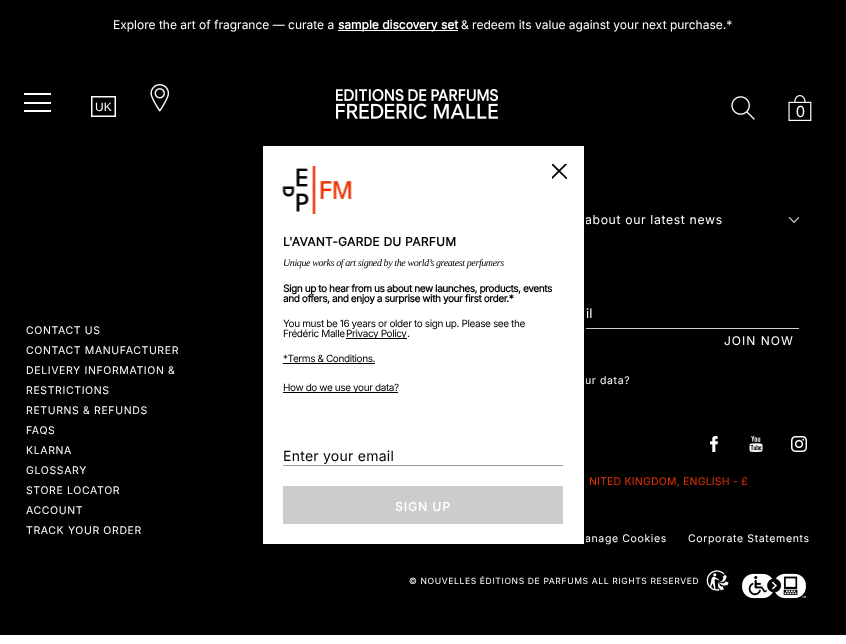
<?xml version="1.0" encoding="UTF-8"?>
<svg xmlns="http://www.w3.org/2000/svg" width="846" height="644">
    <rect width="100%" height="100%" fill="#FFFFFF"/>
    <rect x="0" y="0" width="846" height="635" fill="#000000"/>
    <text x="113" y="29" font-family="Inter" font-size="12" fill="#FFFFFF">Explore the art of fragrance — curate a</text>
    <rect x="338" y="30" width="120" height="1" fill="#FFFFFF"/>
    <text x="338" y="29" font-family="Inter" font-size="12" font-weight="700" fill="#FFFFFF">sample discovery set</text>
    <text x="461" y="29" font-family="Inter" font-size="12" fill="#FFFFFF">&amp; redeem its value against your next purchase.*</text>
    <image x="336" y="89" width="162" height="30" href="img_01.png"/>
    <rect x="24" y="93" width="27" height="2" fill="#FFFFFF"/>
    <rect x="24" y="102" width="27" height="2" fill="#FFFFFF"/>
    <rect x="24" y="110" width="27" height="2" fill="#FFFFFF"/>
    <path d="M 116 117 H 91 V 96 H 116 Z M 92.5 115.5 H 114.5 V 97.5 H 92.5 Z" fill="#FFFFFF"/>
    <text x="95" y="111" font-family="Liberation Sans" font-size="12" fill="#FFFFFF">UK</text>
    <image x="150" y="84" width="20" height="28" href="img_02.png"/>
    <image x="731" y="96" width="24" height="24" href="img_03.png"/>
    <text x="796" y="117" font-family="Liberation Sans" font-size="16" fill="#FFFFFF">0</text>
    <image x="788" y="95" width="24" height="26" href="img_04.png"/>
    <rect x="586" y="328" width="213" height="1" fill="#CCCCCC"/>
    <image x="789" y="217" width="10" height="6" href="img_05.png"/>
    <text x="585" y="224" font-family="Inter" font-size="12.25" letter-spacing="0.63" fill="#FFFFFF">about our latest news</text>
    <text x="586" y="318" font-family="Inter" font-size="13" fill="#FFFFFF">il</text>
    <text x="724" y="345" font-family="Inter" font-size="12" letter-spacing="1" fill="#FFFFFF">JOIN NOW</text>
    <text x="585" y="384" font-family="Inter" font-size="10.5" letter-spacing="0.63" fill="#FFFFFF">ur data?</text>
    <text font-family="Inter" font-size="10.5" letter-spacing="0.63" fill="#FFFFFF">
        <tspan x="26" y="334">CONTACT US</tspan>
        <tspan x="26" y="354">CONTACT MANUFACTURER</tspan>
        <tspan x="26" y="374">DELIVERY INFORMATION &amp;</tspan>
        <tspan x="26" y="394">RESTRICTIONS</tspan>
        <tspan x="26" y="414">RETURNS &amp; REFUNDS</tspan>
        <tspan x="26" y="434">FAQS</tspan>
        <tspan x="26" y="454">KLARNA</tspan>
        <tspan x="26" y="474">GLOSSARY</tspan>
        <tspan x="26" y="494">STORE LOCATOR</tspan>
        <tspan x="26" y="514">ACCOUNT</tspan>
        <tspan x="26" y="534">TRACK YOUR ORDER</tspan>
    </text>
    <image x="710" y="436" width="8" height="16" href="img_06.png"/>
    <image x="749" y="436" width="14" height="16" href="img_07.png"/>
    <image x="791" y="436" width="16" height="16" href="img_08.png"/>
    <text x="589" y="485" font-family="Inter" font-size="10.5" letter-spacing="0.2" fill="#EB3300">NITED KINGDOM, ENGLISH - £</text>
    <text x="585" y="542" font-family="Inter" font-size="10.5" letter-spacing="0.63" fill="#FFFFFF">anage Cookies</text>
    <text x="688" y="542" font-family="Inter" font-size="10.5" letter-spacing="0.63" fill="#FFFFFF">Corporate Statements</text>
    <text x="409" y="584" font-family="Inter" font-size="8.55" letter-spacing="0.63" fill="#FFFFFF">© NOUVELLES ÉDITIONS DE PARFUMS ALL RIGHTS RESERVED</text>
    <image x="706" y="570" width="23" height="22" href="img_09.png"/>
    <image x="742" y="573" width="64" height="26" href="img_10.png"/>
    <rect x="262" y="145" width="323" height="400" fill="#FFFFFF" stroke="#000000" stroke-width="2"/>
    <image x="282" y="166" width="70" height="48" href="img_11.png"/>
    <image x="552" y="164" width="15" height="15" href="img_12.png"/>
    <text x="283" y="246" font-family="Inter" font-size="12" font-weight="700" letter-spacing="0.25" fill="#000000">L'AVANT-GARDE DU PARFUM</text>
    <text x="283" y="266" font-family="Liberation Serif" font-size="10" font-style="italic" letter-spacing="-0.4" fill="#000000">Unique works of art signed by the world’s greatest perfumers</text>
    <text font-family="Inter" font-size="10" font-weight="700" letter-spacing="-0.4" fill="#000000">
        <tspan x="283" y="292">Sign up to hear from us about new launches, products, events</tspan>
        <tspan x="283" y="302">and offers, and enjoy a surprise with your first order.*</tspan>
    </text>
    <text font-family="Inter" font-size="10" letter-spacing="-0.4" fill="#000000">
        <tspan x="283" y="327">You must be 16 years or older to sign up. Please see the</tspan>
        <tspan x="283" y="337">Frédéric Malle</tspan>
    </text>
    <rect x="346" y="338" width="61" height="1" fill="#000000"/>
    <text x="346" y="337" font-family="Inter" font-size="10" letter-spacing="-0.4" fill="#000000">Privacy Policy</text>
    <text x="407" y="337" font-family="Inter" font-size="10" letter-spacing="-0.4" fill="#000000">.</text>
    <text x="283" y="362" font-family="Inter" font-size="10" letter-spacing="-0.4" fill="#000000">*Terms &amp; Conditions.</text>
    <rect x="283" y="363" width="92" height="1" fill="#000000"/>
    <rect x="283" y="392" width="115" height="1" fill="#000000"/>
    <text x="283" y="391" font-family="Inter" font-size="10" letter-spacing="-0.4" fill="#000000">How do we use your data?</text>
    <rect x="283" y="465" width="280" height="1" fill="#989898"/>
    <text x="283" y="461" font-family="Inter" font-size="14" letter-spacing="0.25" fill="#000000">Enter your email</text>
    <rect x="283" y="486" width="280" height="38" fill="#CCCCCC"/>
    <text x="395" y="511" font-family="Inter" font-size="12" font-weight="700" letter-spacing="1" fill="#FFFFFF">SIGN UP</text>
</svg>
